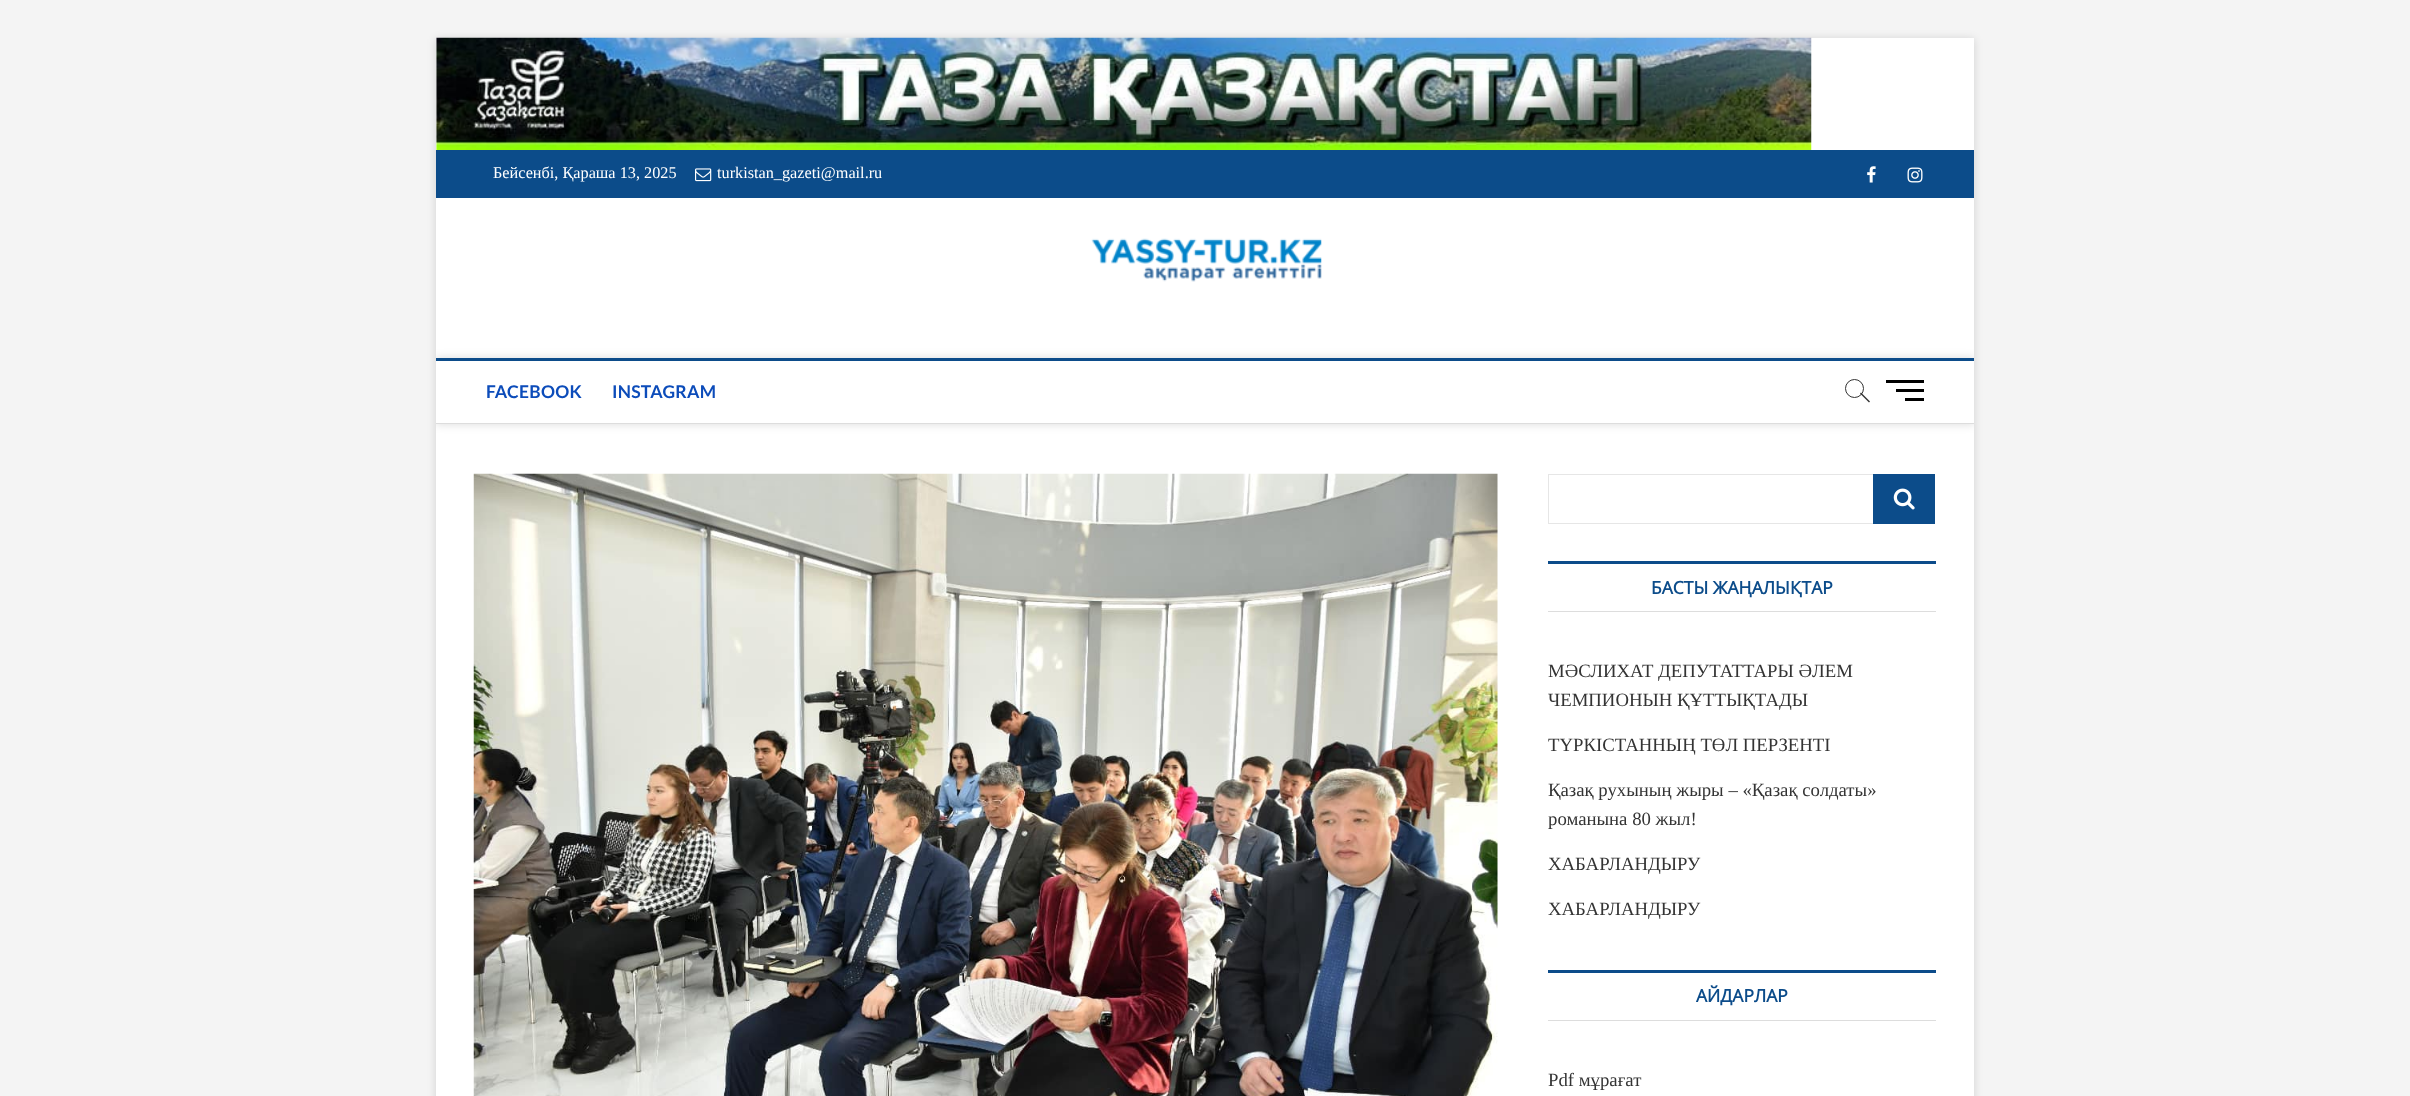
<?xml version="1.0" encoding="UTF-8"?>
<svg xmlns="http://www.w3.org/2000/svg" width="2410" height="1096">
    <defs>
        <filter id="blur1" x="-50%" y="-200%" width="200%" height="500%"><feGaussianBlur stdDeviation="4"/></filter>
        <clipPath id="clip1"><rect x="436" y="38" width="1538" height="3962"/></clipPath>
        <clipPath id="clip2"><path d="M 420 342 H 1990 V 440 H 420 Z M 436 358 H 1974 V 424 H 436 Z" clip-rule="evenodd"/></clipPath>
        <filter id="blur2" x="-50%" y="-200%" width="200%" height="500%"><feGaussianBlur stdDeviation="5"/></filter>
    </defs>
    <rect width="100%" height="100%" fill="#F4F4F4"/>
    <rect x="436" y="39" width="1538" height="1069" fill="#000000" fill-opacity="0.15" filter="url(#blur1)"/>
    <rect x="436" y="38" width="1538" height="1058" fill="#FFFFFF"/>
    <image x="436" y="37" width="1376" height="113" href="img_01.png"/>
    <rect x="436" y="150" width="1538" height="48" fill="#0C4C8A"/>
    <text x="493" y="178" font-family="Liberation Serif" font-size="16.25" fill="#FFFFFF">Бейсенбі, Қараша 13, 2025</text>
    <image x="695" y="168" width="17" height="14" href="img_02.png"/>
    <text x="717" y="178" font-family="Liberation Serif" font-size="16.25" fill="#FFFFFF">turkistan_gazeti@mail.ru</text>
    <image x="1867" y="166" width="9" height="17" href="img_03.png"/>
    <image x="1907" y="167" width="16" height="16" href="img_04.png"/>
    <image x="1091" y="238" width="231" height="44" href="img_05.png"/>
    <g clip-path="url(#clip1)">
        <g clip-path="url(#clip2)">
            <rect x="436" y="358" width="1538" height="66" fill="#000000" fill-opacity="0.15" filter="url(#blur2)"/>
        </g>
    </g>
    <rect x="436" y="358" width="1538" height="3" fill="#0C4C8A"/>
    <rect x="436" y="423" width="1538" height="1" fill="#DDDDDD"/>
    <text x="486" y="398" font-family="Lato" font-size="17.5" font-weight="700" letter-spacing="0.25" fill="#0C4CBA">FACEBOOK</text>
    <text x="612" y="398" font-family="Lato" font-size="17.5" font-weight="700" letter-spacing="0.25" fill="#0C4CBA">INSTAGRAM</text>
    <circle cx="1854.5" cy="388.5" r="9" fill="none" stroke="#333333"/>
    <path d="M 1860 393.5 L 1861 392.5 L 1870 401.5 L 1869 402.5 Z" fill="#333333"/>
    <rect x="1896" y="389" width="28" height="3" fill="#000000"/>
    <rect x="1886" y="380" width="38" height="3" fill="#000000"/>
    <rect x="1905" y="398" width="19" height="3" fill="#000000"/>
    <image x="473" y="473" width="1025" height="623" href="img_06.png"/>
    <rect x="1548.5" y="474.5" width="325" height="49" fill="none" stroke="#E6E6E6"/>
    <rect x="1873" y="474" width="62" height="50" fill="#0C4C8A"/>
    <image x="1893" y="488" width="22" height="22" href="img_07.png"/>
    <rect x="1548" y="561" width="388" height="3" fill="#0C4C8A"/>
    <rect x="1548" y="611" width="388" height="1" fill="#DDDDDD"/>
    <text x="1651" y="594" font-family="Open Sans" font-size="17.5" font-weight="700" fill="#0C4C8A">БАСТЫ ЖАҢАЛЫҚТАР</text>
    <text font-family="Liberation Serif" font-size="18.75" fill="#343434">
        <tspan x="1548" y="677">МӘСЛИХАТ ДЕПУТАТТАРЫ ӘЛЕМ</tspan>
        <tspan x="1548" y="706">ЧЕМПИОНЫН ҚҰТТЫҚТАДЫ</tspan>
    </text>
    <text x="1548" y="751" font-family="Liberation Serif" font-size="18.75" fill="#343434">ТҮРКІСТАННЫҢ ТӨЛ ПЕРЗЕНТІ</text>
    <text font-family="Liberation Serif" font-size="18.75" fill="#343434">
        <tspan x="1548" y="796">Қазақ рухының жыры – «Қазақ солдаты»</tspan>
        <tspan x="1548" y="825">романына 80 жыл!</tspan>
    </text>
    <text x="1548" y="870" font-family="Liberation Serif" font-size="18.75" fill="#343434">ХАБАРЛАНДЫРУ</text>
    <text x="1548" y="915" font-family="Liberation Serif" font-size="18.75" fill="#343434">ХАБАРЛАНДЫРУ</text>
    <rect x="1548" y="970" width="388" height="3" fill="#0C4C8A"/>
    <rect x="1548" y="1020" width="388" height="1" fill="#DDDDDD"/>
    <text x="1696" y="1002" font-family="Open Sans" font-size="17.5" font-weight="700" fill="#0C4C8A">АЙДАРЛАР</text>
    <text x="1548" y="1086" font-family="Liberation Serif" font-size="18.75" fill="#343434">Pdf мұрағат</text>
</svg>
